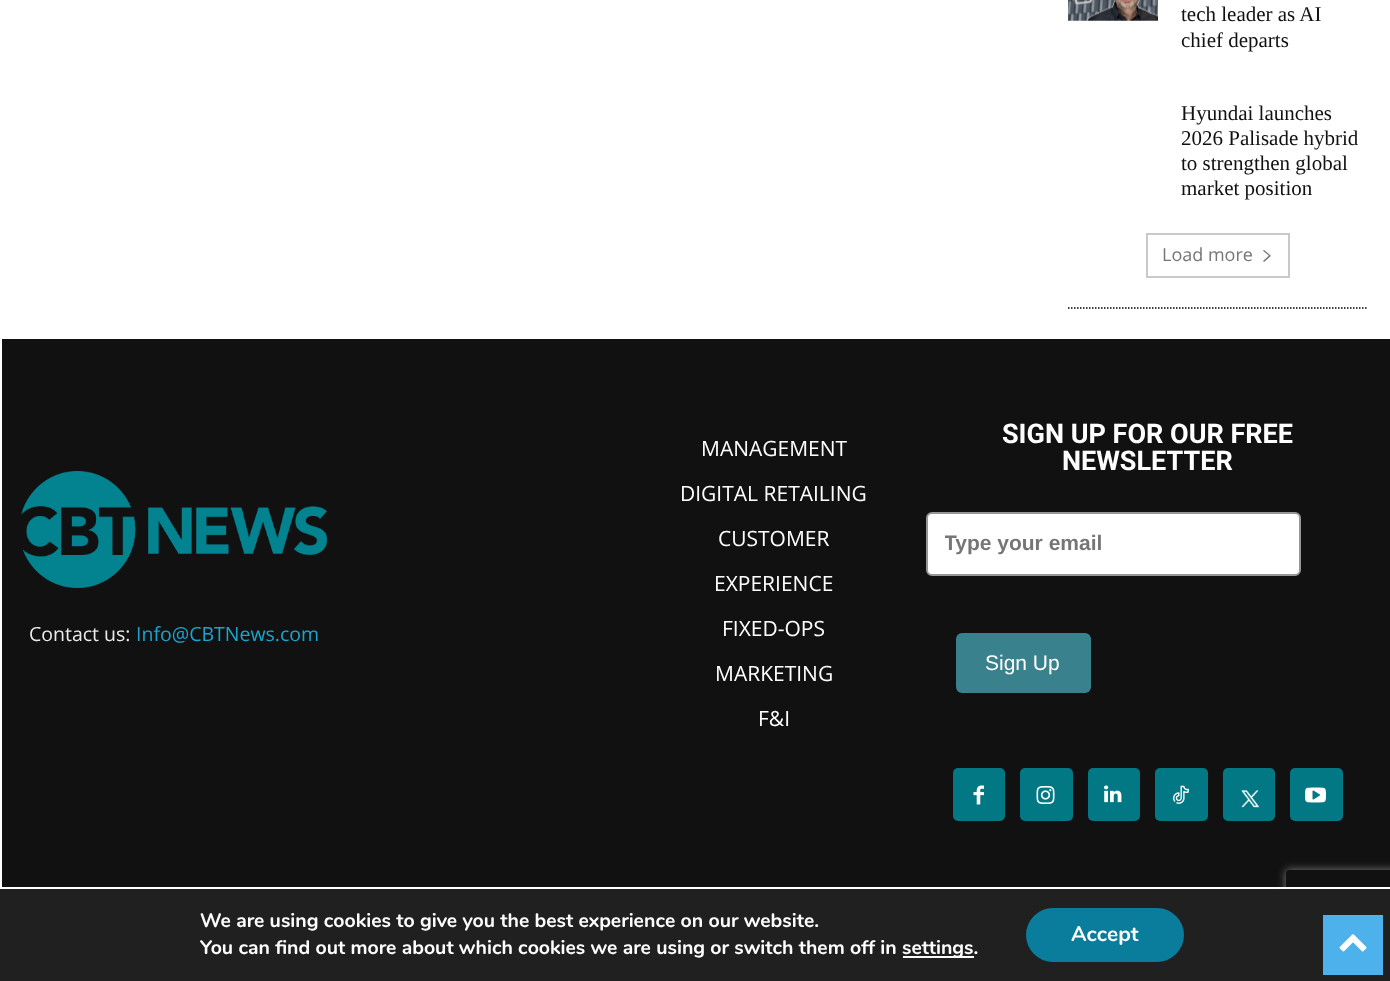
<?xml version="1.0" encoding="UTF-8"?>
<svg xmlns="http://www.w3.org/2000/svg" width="1390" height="981">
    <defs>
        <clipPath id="clip1"><rect x="945" y="531" width="336" height="24"/></clipPath>
        <clipPath id="clip2"><path d="M 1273 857 H 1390 V 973 H 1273 Z M 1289 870 H 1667 C 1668.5 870 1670 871.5 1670 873 V 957 C 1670 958.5 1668.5 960 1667 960 H 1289 C 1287.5 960 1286 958.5 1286 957 V 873 C 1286 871.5 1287.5 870 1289 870 Z" clip-rule="evenodd"/></clipPath>
        <filter id="blur1" x="-50%" y="-200%" width="200%" height="500%"><feGaussianBlur stdDeviation="4"/></filter>
    </defs>
    <rect width="100%" height="100%" fill="#FFFFFF"/>
    <path d="M 1068 308 H 1368" fill="none" stroke="#000000" stroke-width="1.5" stroke-dasharray="1.5 1.5"/>
    <image x="1068" y="0" width="90" height="21" href="img_01.png"/>
    <text font-family="Liberation Serif" font-size="21" fill="#111111">
        <tspan x="1181" y="21">tech leader as AI</tspan>
        <tspan x="1181" y="47">chief departs</tspan>
    </text>
    <text font-family="Liberation Serif" font-size="21" fill="#111111">
        <tspan x="1181" y="120">Hyundai launches</tspan>
        <tspan x="1181" y="145">2026 Palisade hybrid</tspan>
        <tspan x="1181" y="170">to strengthen global</tspan>
        <tspan x="1181" y="195">market position</tspan>
    </text>
    <rect x="1147" y="234" width="142" height="43" fill="none" stroke="#C9C9C9" stroke-width="2"/>
    <text x="1162" y="261" font-family="Open Sans" font-size="18" fill="#767676">Load more</text>
    <image x="1263" y="250" width="8" height="12" href="img_02.png"/>
    <rect x="2" y="339" width="1388" height="548" fill="#111111"/>
    <image x="21" y="471" width="306" height="117" href="img_03.png"/>
    <text x="29" y="641" font-family="Open Sans" font-size="19.5" fill="#EAEAEA">Contact us:</text>
    <text x="136" y="641" font-family="Open Sans" font-size="19.5" fill="#1AA4CE">Info@CBTNews.com</text>
    <text x="701" y="456" font-family="Open Sans" font-size="21" fill="#FFFFFF">MANAGEMENT</text>
    <text x="680" y="501" font-family="Open Sans" font-size="21" fill="#FFFFFF">DIGITAL RETAILING</text>
    <text x="718" y="546" font-family="Open Sans" font-size="21" fill="#FFFFFF">CUSTOMER</text>
    <text x="714" y="591" font-family="Open Sans" font-size="21" fill="#FFFFFF">EXPERIENCE</text>
    <text x="722" y="636" font-family="Open Sans" font-size="21" fill="#FFFFFF">FIXED-OPS</text>
    <text x="715" y="681" font-family="Open Sans" font-size="21" fill="#FFFFFF">MARKETING</text>
    <text x="758" y="726" font-family="Open Sans" font-size="21" fill="#FFFFFF">F&amp;I</text>
    <text x="1002" y="443" font-family="Roboto" font-size="27" font-weight="700" fill="#FFFFFF">SIGN UP FOR OUR FREE</text>
    <text x="1062" y="470" font-family="Roboto" font-size="27" font-weight="700" fill="#FFFFFF">NEWSLETTER</text>
    <rect x="927" y="513" width="373" height="62" rx="5" fill="#FFFFFF" stroke="#979797" stroke-width="2"/>
    <g clip-path="url(#clip1)">
        <text x="944" y="550" font-family="Liberation Sans" font-size="21" font-weight="700" fill="#767676">Type your email</text>
    </g>
    <rect x="956" y="633" width="135" height="60" rx="6" fill="#39818D"/>
    <text x="985" y="670" font-family="Liberation Sans" font-size="21" fill="#FFFFFF">Sign Up</text>
    <rect x="953" y="768" width="52" height="53" rx="5" fill="#017884"/>
    <image x="973" y="785" width="11" height="20" href="img_04.png"/>
    <rect x="1020" y="768" width="53" height="53" rx="5" fill="#017884"/>
    <image x="1036" y="786" width="19" height="18" href="img_05.png"/>
    <rect x="1088" y="768" width="52" height="53" rx="5" fill="#017884"/>
    <image x="1104" y="785" width="18" height="18" href="img_06.png"/>
    <rect x="1155" y="768" width="53" height="53" rx="5" fill="#017884"/>
    <image x="1173" y="785" width="16" height="19" href="img_07.png"/>
    <rect x="1223" y="768" width="52" height="53" rx="5" fill="#017884"/>
    <image x="1241" y="789" width="19" height="19" href="img_08.png"/>
    <rect x="1290" y="768" width="53" height="53" rx="5" fill="#017884"/>
    <image x="1305" y="787" width="21" height="16" href="img_09.png"/>
    <g clip-path="url(#clip2)">
        <rect x="1286" y="870" width="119" height="90" rx="3" fill="#808080" filter="url(#blur1)"/>
    </g>
    <rect x="0" y="889" width="1390" height="92" fill="#202020"/>
    <rect x="1278" y="887" width="8" height="2" fill="#FFFFFF"/>
    <text font-family="Nunito" font-size="19.5" font-weight="700" fill="#FFFFFF">
        <tspan x="200" y="927">We are using cookies to give you the best experience on our website.</tspan>
        <tspan x="200" y="954">You can find out more about which cookies we are using or switch them off in</tspan>
    </text>
    <rect x="903" y="956" width="71" height="2" fill="#FFFFFF"/>
    <text x="902" y="954" font-family="Nunito" font-size="19.5" font-weight="700" fill="#FFFFFF">settings.</text>
    <rect x="1026" y="908" width="158" height="54" rx="27" fill="#0A7C9C"/>
    <text x="1071" y="941" font-family="Nunito" font-size="21" font-weight="700" fill="#FFFFFF">Accept</text>
    <rect x="1323" y="915" width="60" height="60" fill="#4DB2EC"/>
    <image x="1339" y="934" width="28" height="18" href="img_10.png"/>
</svg>
